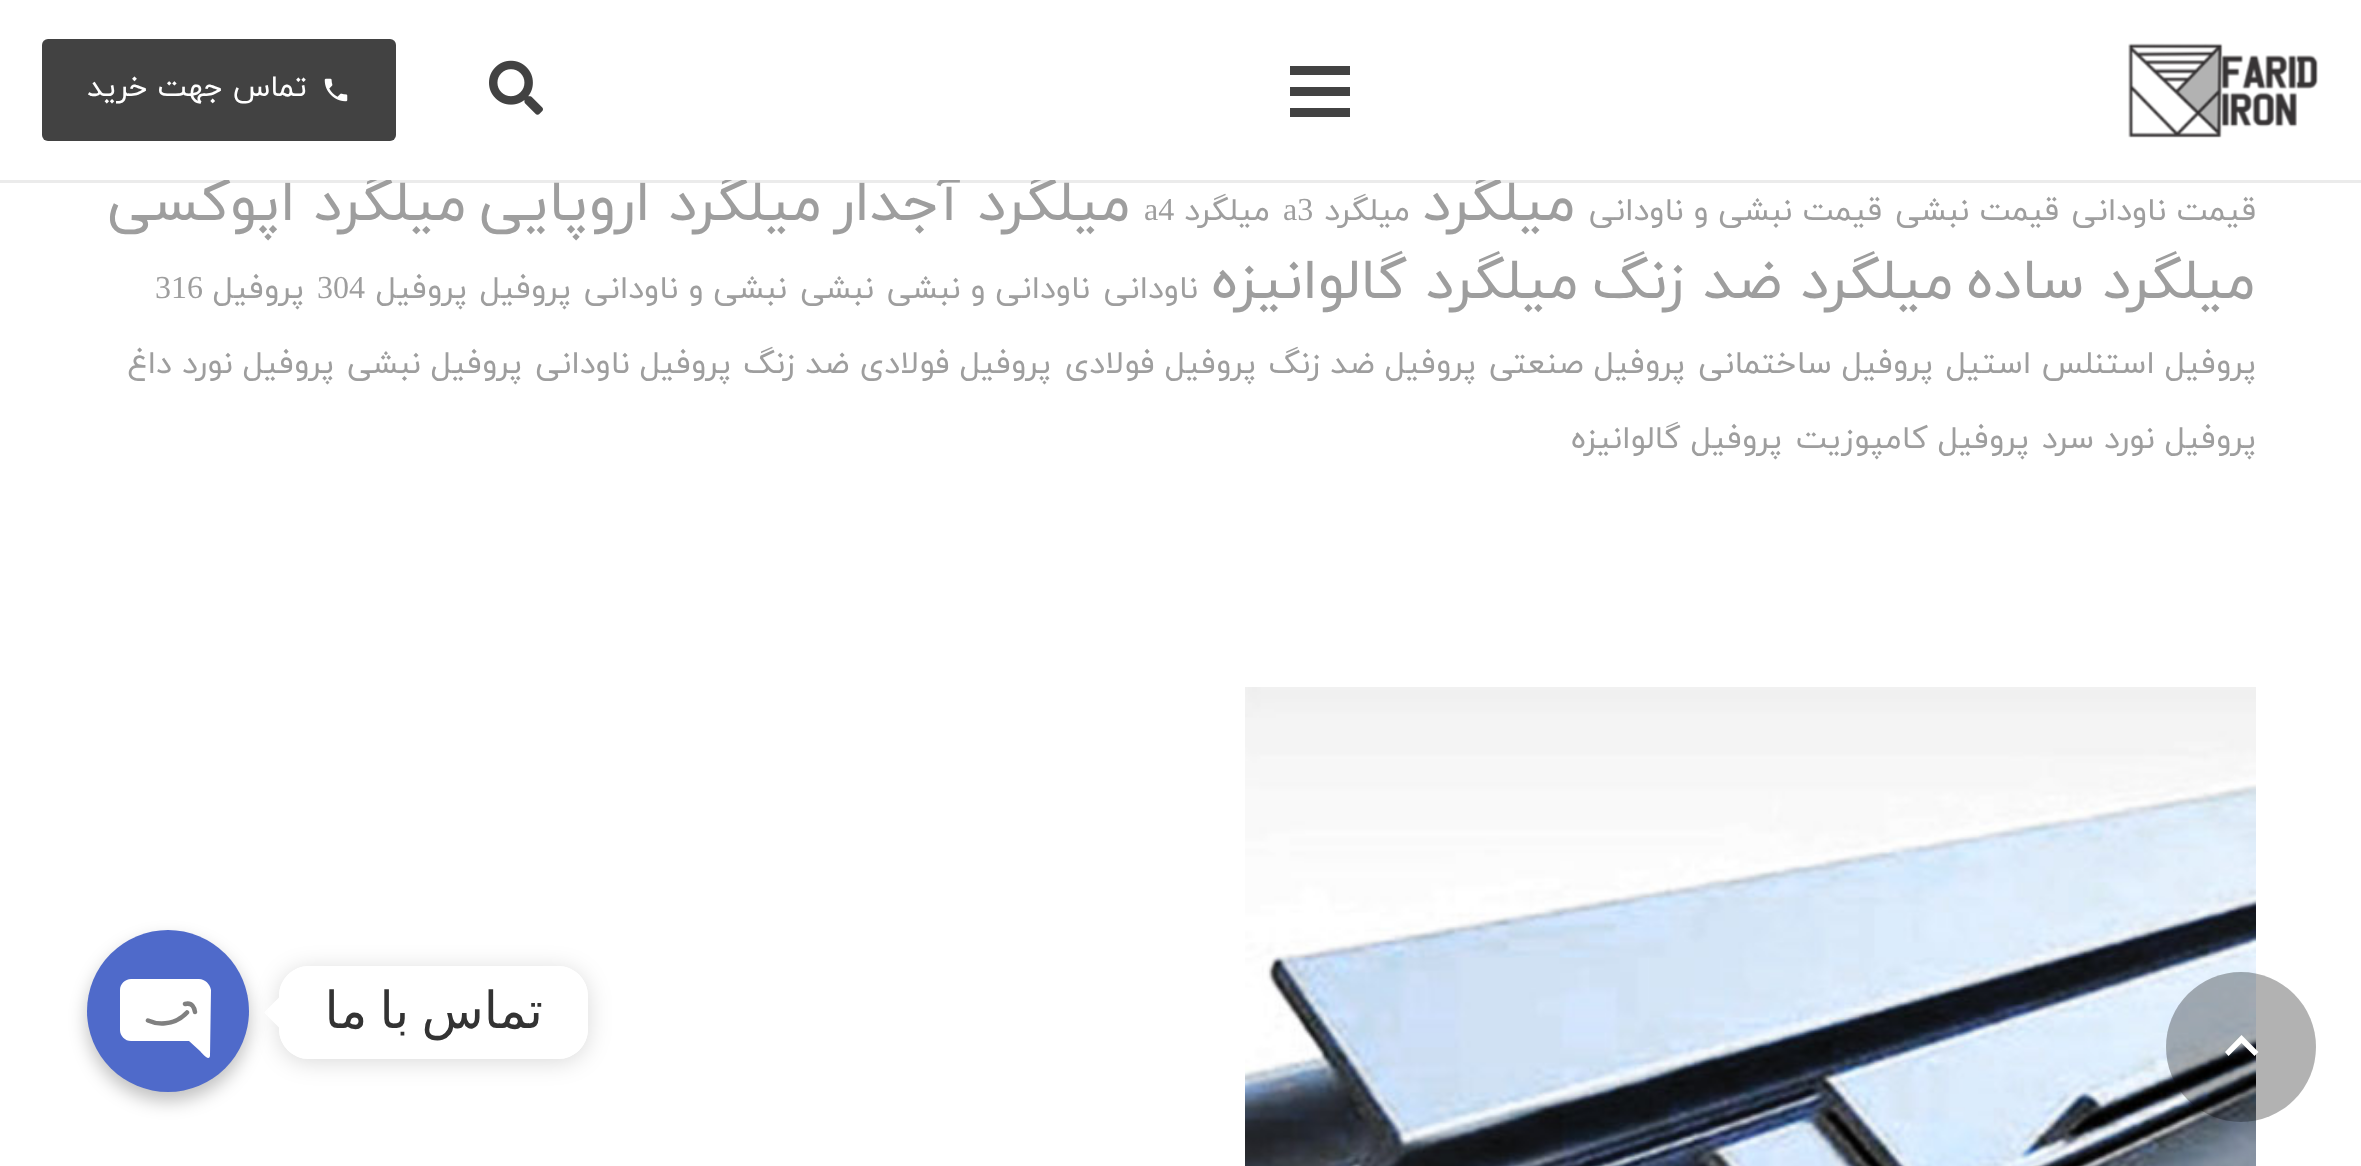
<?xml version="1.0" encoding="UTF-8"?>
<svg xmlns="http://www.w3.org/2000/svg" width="2361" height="1166">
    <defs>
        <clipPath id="clip1"><path d="M 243 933 H 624 V 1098 H 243 Z M 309 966 H 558 C 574.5 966 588 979.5 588 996 V 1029 C 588 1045.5 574.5 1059 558 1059 H 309 C 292.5 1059 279 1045.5 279 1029 V 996 C 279 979.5 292.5 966 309 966 Z" clip-rule="evenodd"/></clipPath>
        <filter id="blur1" x="-50%" y="-200%" width="200%" height="500%"><feGaussianBlur stdDeviation="11.5"/></filter>
        <filter id="blur2" x="-50%" y="-200%" width="200%" height="500%"><feGaussianBlur stdDeviation="9"/></filter>
    </defs>
    <rect width="100%" height="100%" fill="#FFFFFF"/>
    <rect x="0" y="180" width="2361" height="3" fill="#000000" fill-opacity="0.08"/>
    <text x="1576" y="220" font-family="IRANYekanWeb" font-size="57.25" direction="rtl" fill="#9E9E9E">میلگرد</text>
    <text x="1131" y="220" font-family="IRANYekanWeb" font-size="57.25" direction="rtl" fill="#9E9E9E">میلگرد آجدار</text>
    <text x="822" y="220" font-family="IRANYekanWeb" font-size="57.25" direction="rtl" fill="#9E9E9E">میلگرد اروپایی</text>
    <text x="467" y="220" font-family="IRANYekanWeb" font-size="57.25" direction="rtl" fill="#9E9E9E">میلگرد اپوکسی</text>
    <rect x="224" y="173" width="1277" height="7" fill="#FFFFFF"/>
    <image x="2128" y="43" width="190" height="95" href="img_01.png"/>
    <rect x="1290" y="87" width="60" height="9" fill="#424242"/>
    <rect x="1290" y="66" width="60" height="9" fill="#424242"/>
    <rect x="1290" y="108" width="60" height="9" fill="#424242"/>
    <image x="489" y="60" width="54" height="55" href="img_02.png"/>
    <rect x="42" y="39" width="354" height="102" rx="6" fill="#424242"/>
    <image x="324" y="78" width="24" height="24" href="img_03.png"/>
    <text x="307" y="96" font-family="IRANYekanWeb" font-size="30" direction="rtl" fill="#FFFFFF">تماس جهت خرید</text>
    <text x="2256" y="220" font-family="IRANYekanWeb" font-size="32" direction="rtl" fill="#9E9E9E">قیمت ناودانی</text>
    <text x="2059" y="220" font-family="IRANYekanWeb" font-size="32" direction="rtl" fill="#9E9E9E">قیمت نبشی</text>
    <text x="1882" y="220" font-family="IRANYekanWeb" font-size="32" direction="rtl" fill="#9E9E9E">قیمت نبشی و ناودانی</text>
    <text x="1410" y="220" font-family="IRANYekanWeb" font-size="32" direction="rtl" fill="#9E9E9E">میلگرد</text>
    <text x="1283" y="220" font-family="Liberation Serif" font-size="32" fill="#9E9E9E">a3</text>
    <text x="1270" y="220" font-family="IRANYekanWeb" font-size="32" direction="rtl" fill="#9E9E9E">میلگرد</text>
    <text x="1144" y="220" font-family="Liberation Serif" font-size="32" fill="#9E9E9E">a4</text>
    <text x="2256" y="298" font-family="IRANYekanWeb" font-size="57.25" direction="rtl" fill="#9E9E9E">میلگرد ساده</text>
    <text x="1954" y="298" font-family="IRANYekanWeb" font-size="57.25" direction="rtl" fill="#9E9E9E">میلگرد ضد زنگ</text>
    <text x="1579" y="298" font-family="IRANYekanWeb" font-size="57.25" direction="rtl" fill="#9E9E9E">میلگرد گالوانیزه</text>
    <text x="1198" y="298" font-family="IRANYekanWeb" font-size="32" direction="rtl" fill="#9E9E9E">ناودانی</text>
    <text x="1090" y="298" font-family="IRANYekanWeb" font-size="32" direction="rtl" fill="#9E9E9E">ناودانی و نبشی</text>
    <text x="874" y="298" font-family="IRANYekanWeb" font-size="32" direction="rtl" fill="#9E9E9E">نبشی</text>
    <text x="787" y="298" font-family="IRANYekanWeb" font-size="32" direction="rtl" fill="#9E9E9E">نبشی و ناودانی</text>
    <text x="571" y="298" font-family="IRANYekanWeb" font-size="32" direction="rtl" fill="#9E9E9E">پروفیل</text>
    <text x="467" y="298" font-family="IRANYekanWeb" font-size="32" direction="rtl" fill="#9E9E9E">پروفیل</text>
    <text x="317" y="298" font-family="Liberation Serif" font-size="32" fill="#9E9E9E">304</text>
    <text x="304" y="298" font-family="IRANYekanWeb" font-size="32" direction="rtl" fill="#9E9E9E">پروفیل</text>
    <text x="155" y="298" font-family="Liberation Serif" font-size="32" fill="#9E9E9E">316</text>
    <text x="2256" y="373" font-family="IRANYekanWeb" font-size="32" direction="rtl" fill="#9E9E9E">پروفیل استنلس استیل</text>
    <text x="1933" y="373" font-family="IRANYekanWeb" font-size="32" direction="rtl" fill="#9E9E9E">پروفیل ساختمانی</text>
    <text x="1685" y="373" font-family="IRANYekanWeb" font-size="32" direction="rtl" fill="#9E9E9E">پروفیل صنعتی</text>
    <text x="1476" y="373" font-family="IRANYekanWeb" font-size="32" direction="rtl" fill="#9E9E9E">پروفیل ضد زنگ</text>
    <text x="1256" y="373" font-family="IRANYekanWeb" font-size="32" direction="rtl" fill="#9E9E9E">پروفیل فولادی</text>
    <text x="1051" y="373" font-family="IRANYekanWeb" font-size="32" direction="rtl" fill="#9E9E9E">پروفیل فولادی ضد زنگ</text>
    <text x="731" y="373" font-family="IRANYekanWeb" font-size="32" direction="rtl" fill="#9E9E9E">پروفیل ناودانی</text>
    <text x="522" y="373" font-family="IRANYekanWeb" font-size="32" direction="rtl" fill="#9E9E9E">پروفیل نبشی</text>
    <text x="334" y="373" font-family="IRANYekanWeb" font-size="32" direction="rtl" fill="#9E9E9E">پروفیل نورد داغ</text>
    <text x="2256" y="448" font-family="IRANYekanWeb" font-size="32" direction="rtl" fill="#9E9E9E">پروفیل نورد سرد</text>
    <text x="2029" y="448" font-family="IRANYekanWeb" font-size="32" direction="rtl" fill="#9E9E9E">پروفیل کامپوزیت</text>
    <text x="1782" y="448" font-family="IRANYekanWeb" font-size="32" direction="rtl" fill="#9E9E9E">پروفیل گالوانیزه</text>
    <image x="1245" y="687" width="1011" height="479" href="img_04.png"/>
    <circle cx="2241" cy="1047" r="75" fill="#000000" fill-opacity="0.3"/>
    <path d="M 2228.5 1056 L 2225 1052 L 2241.5 1035 L 2258.5 1052 L 2254.5 1056 L 2241.5 1043 Z" fill="#FFFFFF"/>
    <g clip-path="url(#clip1)">
        <rect x="279" y="969" width="309" height="93" rx="30" fill="#000000" fill-opacity="0.15" filter="url(#blur1)"/>
    </g>
    <rect x="279" y="966" width="309" height="93" rx="30" fill="#FFFFFF"/>
    <text x="543" y="1028" word-spacing="-4" font-family="DejaVu Sans" font-size="51" direction="rtl" fill="#333333">تماس با ما</text>
    <path d="M 279 997.5 V 1027.5 L 264 1012.5 Z" fill="#FFFFFF"/>
    <rect x="87" y="939" width="162" height="162" rx="81" fill="#000000" fill-opacity="0.25" filter="url(#blur2)"/>
    <circle cx="168" cy="1011" r="81" fill="#4F6ACA"/>
    <path d="M 199 979 H 131 C 125 979 120 984 120 990 V 1030 C 120 1036 125 1041 131 1041 H 189 L 200 1051 C 201 1052 209 1062 210 1056 L 211 990 C 210 984 205 979 199 979 Z" fill="#FFFFFF"/>
    <path d="M 148 1020.5 C 155.5 1024 173.5 1027 187 1012.5 M 195 1012 C 194.5 1008.5 192.5 1002 185 1004" fill="none" stroke="#808080" stroke-width="4.5" stroke-linecap="round" stroke-linejoin="round"/>
</svg>
